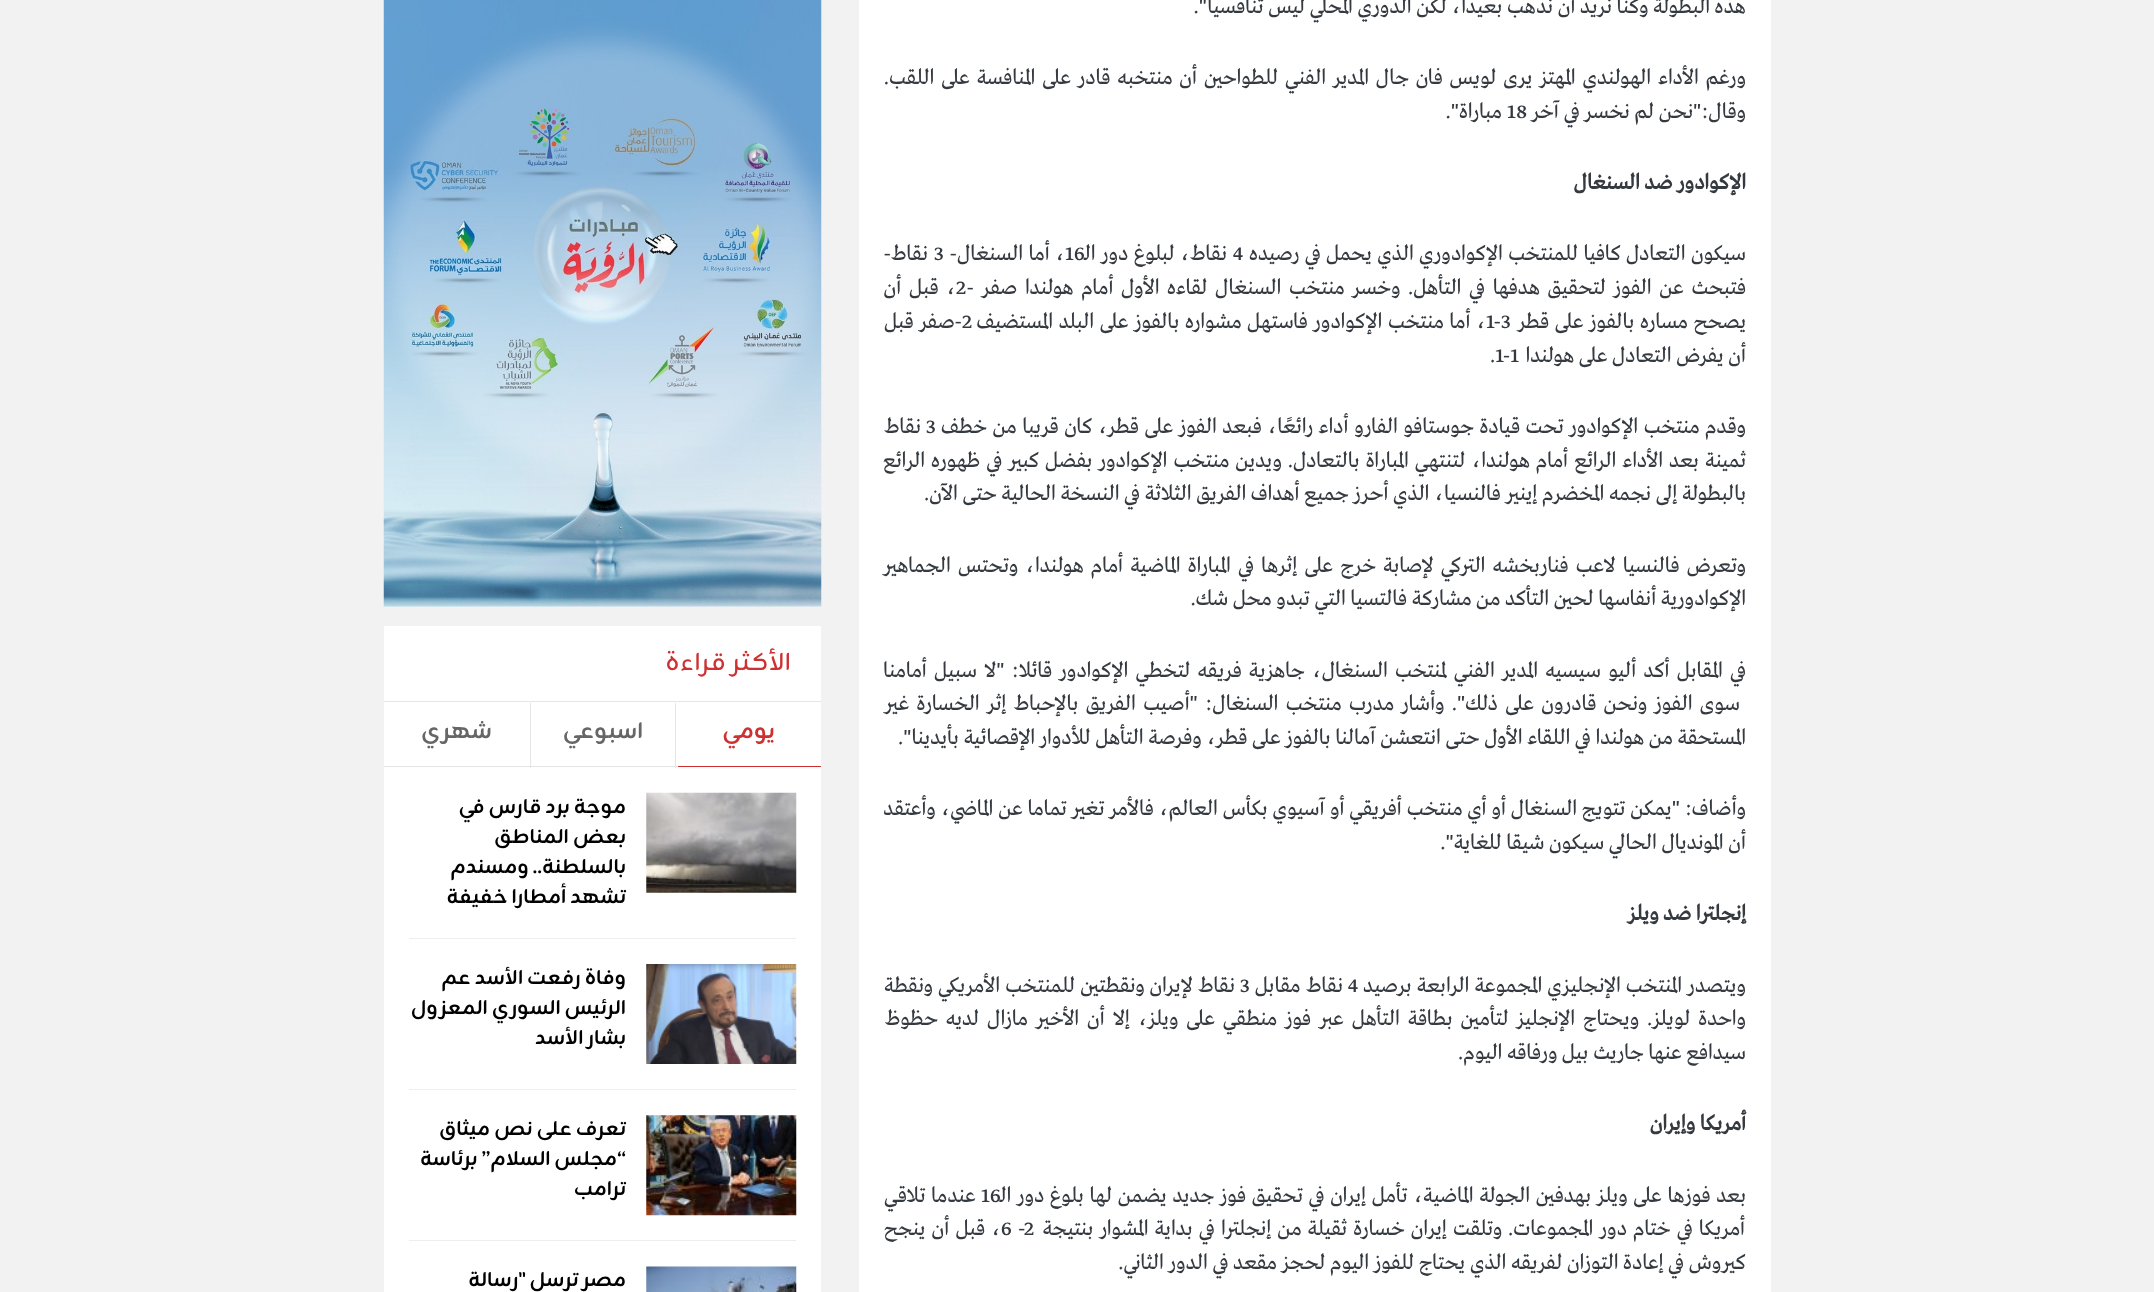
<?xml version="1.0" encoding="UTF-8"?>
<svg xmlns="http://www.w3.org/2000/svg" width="2154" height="1292">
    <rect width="100%" height="100%" fill="#F2F2F2"/>
    <rect x="859" y="0" width="912" height="1292" fill="#FFFFFF"/>
    <text x="1746" y="13" font-family="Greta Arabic" font-size="22.5" direction="rtl" fill="#343A40">هذه البطولة وكنا نريد أن نذهب بعيدا، لكن الدوري المحلي ليس تنافسيا".</text>
    <text font-family="Greta Arabic" font-size="22.5" direction="rtl" fill="#343A40">
        <tspan x="1746" y="84" word-spacing="2.25">ورغم الأداء الهولندي المهتز يرى لويس فان جال المدير الفني للطواحين أن منتخبه قادر على المنافسة على اللقب.</tspan>
        <tspan x="1746" y="118">وقال:"نحن لم نخسر في آخر</tspan>
    </text>
    <text x="1507" y="118" font-family="Greta Arabic" font-size="22.5" fill="#343A40">18</text>
    <text x="1502" y="118" font-family="Greta Arabic" font-size="22.5" direction="rtl" fill="#343A40">مباراة".</text>
    <text x="1746" y="189" font-family="Greta Arabic" font-size="22.5" font-weight="700" direction="rtl" fill="#343A40">الإكوادور ضد السنغال</text>
    <text x="1746" y="260" word-spacing="0.75" font-family="Greta Arabic" font-size="22.5" direction="rtl" fill="#343A40">سيكون التعادل كافيا للمنتخب الإكوادوري الذي يحمل في رصيده</text>
    <text x="1233" y="260" font-family="Greta Arabic" font-size="22.5" fill="#343A40">4</text>
    <text x="1065" y="260" font-family="Greta Arabic" font-size="22.5" fill="#343A40">16</text>
    <text x="1227" y="260" word-spacing="0.75" font-family="Greta Arabic" font-size="22.5" direction="rtl" fill="#343A40">نقاط، لبلوغ دور الـ</text>
    <text x="1065" y="260" word-spacing="0.75" font-family="Greta Arabic" font-size="22.5" direction="rtl" fill="#343A40">، أما السنغال-</text>
    <text x="934" y="260" font-family="Greta Arabic" font-size="22.5" fill="#343A40">3</text>
    <text x="928" y="260" font-family="Greta Arabic" font-size="22.5" direction="rtl" fill="#343A40">نقاط-</text>
    <text x="1746" y="294" word-spacing="3" font-family="Greta Arabic" font-size="22.5" direction="rtl" fill="#343A40">فتبحث عن الفوز لتحقيق هدفها في التأهل. وخسر منتخب السنغال لقاءه الأول أمام هولندا صفر -</text>
    <text x="956" y="294" font-family="Greta Arabic" font-size="22.5" fill="#343A40">2</text>
    <text x="956" y="294" word-spacing="3" font-family="Greta Arabic" font-size="22.5" direction="rtl" fill="#343A40">، قبل أن</text>
    <text x="1746" y="328" word-spacing="1" font-family="Greta Arabic" font-size="22.5" direction="rtl" fill="#343A40">يصحح مساره بالفوز على قطر</text>
    <text x="1486" y="328" font-family="Greta Arabic" font-size="22.5" fill="#343A40">1-3</text>
    <text x="1486" y="328" word-spacing="1" font-family="Greta Arabic" font-size="22.5" direction="rtl" fill="#343A40">، أما منتخب الإكوادور فاستهل مشواره بالفوز على البلد المستضيف</text>
    <text x="962" y="328" font-family="Greta Arabic" font-size="22.5" fill="#343A40">2</text>
    <text x="962" y="328" word-spacing="1" font-family="Greta Arabic" font-size="22.5" direction="rtl" fill="#343A40">-صفر قبل</text>
    <text x="1746" y="362" font-family="Greta Arabic" font-size="22.5" direction="rtl" fill="#343A40">أن يفرض التعادل على هولندا</text>
    <text x="1490" y="362" font-family="Greta Arabic" font-size="22.5" fill="#343A40">.1-1</text>
    <text x="1746" y="433" word-spacing="0.9" font-family="Greta Arabic" font-size="22.5" direction="rtl" fill="#343A40">وقدم منتخب الإكوادور تحت قيادة جوستافو الفارو أداء رائعًا، فبعد الفوز على قطر، كان قريبا من خطف</text>
    <text x="926" y="433" font-family="Greta Arabic" font-size="22.5" fill="#343A40">3</text>
    <text x="921" y="433" font-family="Greta Arabic" font-size="22.5" direction="rtl" fill="#343A40">نقاط</text>
    <text font-family="Greta Arabic" font-size="22.5" direction="rtl" fill="#343A40">
        <tspan x="1746" y="467" word-spacing="1.4">ثمينة بعد الأداء الرائع أمام هولندا، لتنتهي المباراة بالتعادل. ويدين منتخب الإكوادور بفضل كبير في ظهوره الرائع</tspan>
        <tspan x="1746" y="500">بالبطولة إلى نجمه المخضرم إينير فالنسيا، الذي أحرز جميع أهداف الفريق الثلاثة في النسخة الحالية حتى الآن.</tspan>
    </text>
    <text font-family="Greta Arabic" font-size="22.5" direction="rtl" fill="#343A40">
        <tspan x="1746" y="572" word-spacing="2.5">وتعرض فالنسيا لاعب فناربخشه التركي لإصابة خرج على إثرها في المباراة الماضية أمام هولندا، وتحتس الجماهير</tspan>
        <tspan x="1746" y="605">الإكوادورية أنفاسها لحين التأكد من مشاركة فالتسيا التي تبدو محل شك.</tspan>
    </text>
    <text x="1746" y="677" word-spacing="2.5" font-family="Greta Arabic" font-size="22.5" direction="rtl" fill="#343A40">في المقابل أكد أليو سيسيه المدير الفني لمنتخب السنغال، جاهزية فريقه لتخطي الإكوادور قائلا: "لا سبيل أمامنا</text>
    <text x="1740" y="710" word-spacing="2.75" font-family="Greta Arabic" font-size="22.5" direction="rtl" fill="#343A40">سوى الفوز ونحن قادرون على ذلك". وأشار مدرب منتخب السنغال: "أصيب الفريق بالإحباط إثر الخسارة غير</text>
    <text x="1746" y="744" font-family="Greta Arabic" font-size="22.5" direction="rtl" fill="#343A40">المستحقة من هولندا في اللقاء الأول حتى انتعشن آمالنا بالفوز على قطر، وفرصة التأهل للأدوار الإقصائية بأيدينا".</text>
    <text font-family="Greta Arabic" font-size="22.5" direction="rtl" fill="#343A40">
        <tspan x="1746" y="815" word-spacing="0.2">وأضاف: "يمكن تتويج السنغال أو أي منتخب أفريقي أو آسيوي بكأس العالم، فالأمر تغير تماما عن الماضي، وأعتقد</tspan>
        <tspan x="1746" y="849">أن المونديال الحالي سيكون شيقا للغاية".</tspan>
    </text>
    <text x="1746" y="920" font-family="Greta Arabic" font-size="22.5" font-weight="700" direction="rtl" fill="#343A40">إنجلترا ضد ويلز</text>
    <text x="1746" y="992" word-spacing="0.5" font-family="Greta Arabic" font-size="22.5" direction="rtl" fill="#343A40">ويتصدر المنتخب الإنجليزي المجموعة الرابعة برصيد</text>
    <text x="1348" y="992" font-family="Greta Arabic" font-size="22.5" fill="#343A40">4</text>
    <text x="1343" y="992" word-spacing="1" font-family="Greta Arabic" font-size="22.5" direction="rtl" fill="#343A40">نقاط مقابل</text>
    <text x="1240" y="992" font-family="Greta Arabic" font-size="22.5" fill="#343A40">3</text>
    <text x="1235" y="992" word-spacing="0.5" font-family="Greta Arabic" font-size="22.5" direction="rtl" fill="#343A40">نقاط لإيران ونقطتين للمنتخب الأمريكي ونقطة</text>
    <text font-family="Greta Arabic" font-size="22.5" direction="rtl" fill="#343A40">
        <tspan x="1746" y="1025" word-spacing="3.25">واحدة لويلز. ويحتاج الإنجليز لتأمين بطاقة التأهل عبر فوز منطقي على ويلز، إلا أن الأخير مازال لديه حظوظ</tspan>
        <tspan x="1746" y="1059">سيدافع عنها جاريث بيل ورفاقه اليوم.</tspan>
    </text>
    <text x="1746" y="1130" font-family="Greta Arabic" font-size="22.5" font-weight="700" direction="rtl" fill="#343A40">أمريكا وإيران</text>
    <text x="1746" y="1202" word-spacing="1" font-family="Greta Arabic" font-size="22.5" direction="rtl" fill="#343A40">بعد فوزها على ويلز بهدفين الجولة الماضية، تأمل إيران في تحقيق فوز جديد يضمن لها بلوغ دور الـ</text>
    <text x="981" y="1202" font-family="Greta Arabic" font-size="22.5" fill="#343A40">16</text>
    <text x="976" y="1202" word-spacing="1" font-family="Greta Arabic" font-size="22.5" direction="rtl" fill="#343A40">عندما تلاقي</text>
    <text x="1745" y="1235" word-spacing="1.5" font-family="Greta Arabic" font-size="22.5" direction="rtl" fill="#343A40">أمريكا في ختام دور المجموعات. وتلقت إيران خسارة ثقيلة من إنجلترا في بداية المشوار بنتيجة</text>
    <text x="1018" y="1235" font-family="Greta Arabic" font-size="22.5" fill="#343A40">-2</text>
    <text x="1001" y="1235" font-family="Greta Arabic" font-size="22.5" fill="#343A40">6</text>
    <text x="1001" y="1235" word-spacing="1.5" font-family="Greta Arabic" font-size="22.5" direction="rtl" fill="#343A40">، قبل أن ينجح</text>
    <text x="1746" y="1269" font-family="Greta Arabic" font-size="22.5" direction="rtl" fill="#343A40">كيروش في إعادة التوزان لفريقه الذي يحتاج للفوز اليوم لحجز مقعد في الدور الثاني.</text>
    <image x="383" y="0" width="439" height="607" href="img_01.png"/>
    <rect x="384" y="626" width="437" height="666" fill="#FFFFFF"/>
    <rect x="384" y="701" width="437" height="1" fill="#E5E5E5"/>
    <text x="791" y="670" font-family="Zain" font-size="25" direction="rtl" fill="#CD3131">الأكثر قراءة</text>
    <rect x="384" y="766" width="294" height="1" fill="#E5E5E5"/>
    <rect x="675" y="703" width="1" height="65" fill="#E5E5E5"/>
    <text x="775" y="738" font-family="Zain" font-size="22.5" font-weight="700" direction="rtl" fill="#CD3131">يومي</text>
    <rect x="678" y="766" width="143" height="1" fill="#CD3131"/>
    <rect x="530" y="703" width="1" height="65" fill="#E5E5E5"/>
    <text x="643" y="738" font-family="Zain" font-size="22.5" font-weight="700" direction="rtl" fill="#666666">اسبوعي</text>
    <text x="492" y="738" font-family="Zain" font-size="22.5" font-weight="700" direction="rtl" fill="#666666">شهري</text>
    <rect x="409" y="938" width="387" height="1" fill="#EEEEEE"/>
    <image x="646" y="792" width="151" height="101" href="img_02.png"/>
    <text font-family="Zain" font-size="20" font-weight="700" direction="rtl" fill="#000000">
        <tspan x="626" y="813">موجة برد قارس في</tspan>
        <tspan x="626" y="843">بعض المناطق</tspan>
        <tspan x="626" y="873">بالسلطنة.. ومسندم</tspan>
        <tspan x="626" y="903">تشهد أمطارا خفيفة</tspan>
    </text>
    <rect x="409" y="1089" width="387" height="1" fill="#EEEEEE"/>
    <image x="646" y="964" width="151" height="100" href="img_03.png"/>
    <text font-family="Zain" font-size="20" font-weight="700" direction="rtl" fill="#000000">
        <tspan x="626" y="984">وفاة رفعت الأسد عم</tspan>
        <tspan x="626" y="1014">الرئيس السوري المعزول</tspan>
        <tspan x="626" y="1044">بشار الأسد</tspan>
    </text>
    <rect x="409" y="1240" width="387" height="1" fill="#EEEEEE"/>
    <image x="646" y="1115" width="151" height="101" href="img_04.png"/>
    <text font-family="Zain" font-size="20" font-weight="700" direction="rtl" fill="#000000">
        <tspan x="626" y="1135">تعرف على نص ميثاق</tspan>
        <tspan x="626" y="1165">“مجلس السلام” برئاسة</tspan>
        <tspan x="626" y="1195">ترامب</tspan>
    </text>
    <image x="646" y="1266" width="151" height="26" href="img_05.png"/>
    <text x="626" y="1286" font-family="Zain" font-size="20" font-weight="700" direction="rtl" fill="#000000">مصر ترسل "رسالة</text>
</svg>
